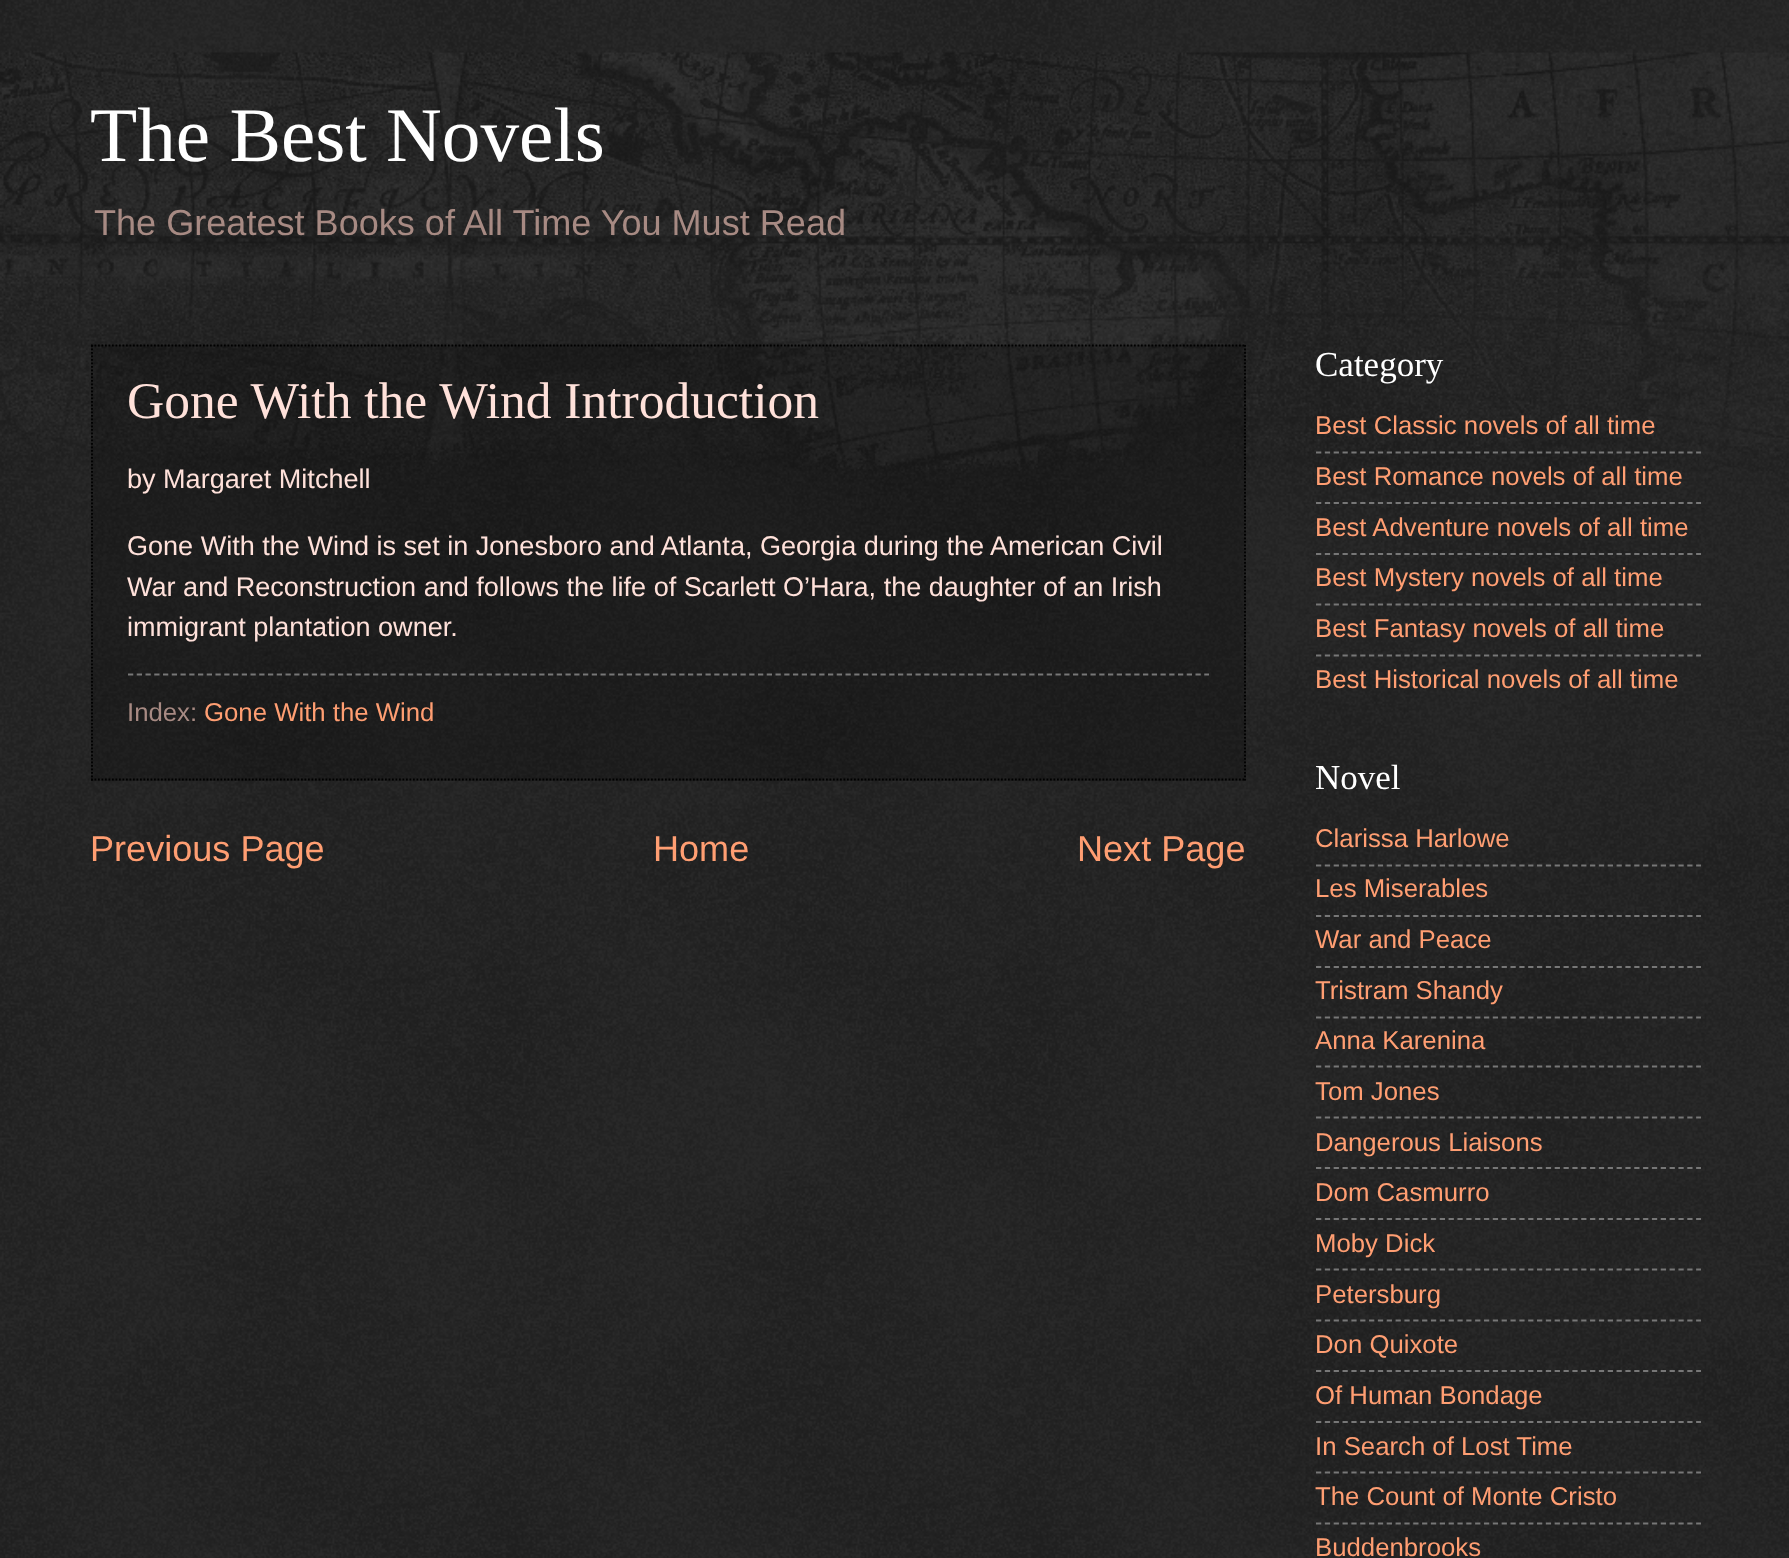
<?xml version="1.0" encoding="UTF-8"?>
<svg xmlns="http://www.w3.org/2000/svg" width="1789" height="1558">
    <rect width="100%" height="100%" fill="#000000"/>
    <image x="0" y="0" width="1789" height="1558" href="img_01.png"/>
    <image x="0" y="52" width="1789" height="419" href="img_02.png"/>
    <text x="90" y="161" font-family="Liberation Serif" font-size="77.25" fill="#FFFFFF">The Best Novels</text>
    <text x="94" y="235" font-family="Liberation Sans" font-size="36.1" fill="#A78A83">The Greatest Books of All Time You Must Read</text>
    <rect x="91" y="345" width="1155" height="436" fill="#000000" fill-opacity="0.2"/>
    <path d="M 91 345.5 H 1246" fill="none" stroke="#000000" stroke-width="1.8" stroke-dasharray="1.75 1.75"/>
    <path d="M 1245 345 V 780.5" fill="none" stroke="#000000" stroke-width="1.8" stroke-dasharray="1.75 1.75"/>
    <path d="M 91 779.5 H 1246" fill="none" stroke="#000000" stroke-width="1.8" stroke-dasharray="1.75 1.75"/>
    <path d="M 92 345 V 780.5" fill="none" stroke="#000000" stroke-width="1.8" stroke-dasharray="1.75 1.75"/>
    <text x="127" y="418" font-family="Liberation Serif" font-size="51.5" fill="#FFE1DA">Gone With the Wind Introduction</text>
    <text x="127" y="488" font-family="Liberation Sans" font-size="27.05" fill="#FFE1DA">by Margaret Mitchell</text>
    <text font-family="Liberation Sans" font-size="27.05" fill="#FFE1DA">
        <tspan x="127" y="555">Gone With the Wind is set in Jonesboro and Atlanta, Georgia during the American Civil</tspan>
        <tspan x="127" y="596">War and Reconstruction and follows the life of Scarlett O’Hara, the daughter of an Irish</tspan>
        <tspan x="127" y="636">immigrant plantation owner.</tspan>
    </text>
    <path d="M 128 674.5 H 1209" fill="none" stroke="#777777" stroke-width="1.8" stroke-dasharray="5.25 3.5"/>
    <text x="127" y="721" font-family="Liberation Sans" font-size="25.75" fill="#A78A83">Index:</text>
    <text x="204" y="721" font-family="Liberation Sans" font-size="25.75" fill="#FF9E72">Gone With the Wind</text>
    <text x="90" y="861" font-family="Liberation Sans" font-size="36.1" fill="#FF9E72">Previous Page</text>
    <text x="653" y="861" font-family="Liberation Sans" font-size="36.1" fill="#FF9E72">Home</text>
    <text x="1077" y="861" font-family="Liberation Sans" font-size="36.1" fill="#FF9E72">Next Page</text>
    <text x="1315" y="376" font-family="Liberation Serif" font-size="35" fill="#FFFFFF">Category</text>
    <text x="1315" y="434" font-family="Liberation Sans" font-size="25.75" fill="#FF9E72">Best Classic novels of all time</text>
    <path d="M 1316 452.5 H 1701" fill="none" stroke="#777777" stroke-width="1.8" stroke-dasharray="5.25 3.59"/>
    <text x="1315" y="485" font-family="Liberation Sans" font-size="25.75" fill="#FF9E72">Best Romance novels of all time</text>
    <path d="M 1316 503 H 1701" fill="none" stroke="#777777" stroke-width="1.8" stroke-dasharray="5.25 3.59"/>
    <text x="1315" y="536" font-family="Liberation Sans" font-size="25.75" fill="#FF9E72">Best Adventure novels of all time</text>
    <path d="M 1316 554 H 1701" fill="none" stroke="#777777" stroke-width="1.8" stroke-dasharray="5.25 3.59"/>
    <text x="1315" y="586" font-family="Liberation Sans" font-size="25.75" fill="#FF9E72">Best Mystery novels of all time</text>
    <path d="M 1316 604.5 H 1701" fill="none" stroke="#777777" stroke-width="1.8" stroke-dasharray="5.25 3.59"/>
    <text x="1315" y="637" font-family="Liberation Sans" font-size="25.75" fill="#FF9E72">Best Fantasy novels of all time</text>
    <path d="M 1316 655.5 H 1701" fill="none" stroke="#777777" stroke-width="1.8" stroke-dasharray="5.25 3.59"/>
    <text x="1315" y="688" font-family="Liberation Sans" font-size="25.75" fill="#FF9E72">Best Historical novels of all time</text>
    <text x="1315" y="789" font-family="Liberation Serif" font-size="35" fill="#FFFFFF">Novel</text>
    <text x="1315" y="847" font-family="Liberation Sans" font-size="25.75" fill="#FF9E72">Clarissa Harlowe</text>
    <path d="M 1316 865.5 H 1701" fill="none" stroke="#777777" stroke-width="1.8" stroke-dasharray="5.25 3.59"/>
    <text x="1315" y="897" font-family="Liberation Sans" font-size="25.75" fill="#FF9E72">Les Miserables</text>
    <path d="M 1316 916 H 1701" fill="none" stroke="#777777" stroke-width="1.8" stroke-dasharray="5.25 3.59"/>
    <text x="1315" y="948" font-family="Liberation Sans" font-size="25.75" fill="#FF9E72">War and Peace</text>
    <path d="M 1316 967 H 1701" fill="none" stroke="#777777" stroke-width="1.8" stroke-dasharray="5.25 3.59"/>
    <text x="1315" y="999" font-family="Liberation Sans" font-size="25.75" fill="#FF9E72">Tristram Shandy</text>
    <path d="M 1316 1017.5 H 1701" fill="none" stroke="#777777" stroke-width="1.8" stroke-dasharray="5.25 3.59"/>
    <text x="1315" y="1049" font-family="Liberation Sans" font-size="25.75" fill="#FF9E72">Anna Karenina</text>
    <path d="M 1316 1066.5 H 1701" fill="none" stroke="#777777" stroke-width="1.8" stroke-dasharray="5.25 3.59"/>
    <text x="1315" y="1100" font-family="Liberation Sans" font-size="25.75" fill="#FF9E72">Tom Jones</text>
    <path d="M 1316 1117.5 H 1701" fill="none" stroke="#777777" stroke-width="1.8" stroke-dasharray="5.25 3.59"/>
    <text x="1315" y="1151" font-family="Liberation Sans" font-size="25.75" fill="#FF9E72">Dangerous Liaisons</text>
    <path d="M 1316 1168 H 1701" fill="none" stroke="#777777" stroke-width="1.8" stroke-dasharray="5.25 3.59"/>
    <text x="1315" y="1201" font-family="Liberation Sans" font-size="25.75" fill="#FF9E72">Dom Casmurro</text>
    <path d="M 1316 1219 H 1701" fill="none" stroke="#777777" stroke-width="1.8" stroke-dasharray="5.25 3.59"/>
    <text x="1315" y="1252" font-family="Liberation Sans" font-size="25.75" fill="#FF9E72">Moby Dick</text>
    <path d="M 1316 1269.5 H 1701" fill="none" stroke="#777777" stroke-width="1.8" stroke-dasharray="5.25 3.59"/>
    <text x="1315" y="1303" font-family="Liberation Sans" font-size="25.75" fill="#FF9E72">Petersburg</text>
    <path d="M 1316 1320.5 H 1701" fill="none" stroke="#777777" stroke-width="1.8" stroke-dasharray="5.25 3.59"/>
    <text x="1315" y="1353" font-family="Liberation Sans" font-size="25.75" fill="#FF9E72">Don Quixote</text>
    <path d="M 1316 1371 H 1701" fill="none" stroke="#777777" stroke-width="1.8" stroke-dasharray="5.25 3.59"/>
    <text x="1315" y="1404" font-family="Liberation Sans" font-size="25.75" fill="#FF9E72">Of Human Bondage</text>
    <path d="M 1316 1422 H 1701" fill="none" stroke="#777777" stroke-width="1.8" stroke-dasharray="5.25 3.59"/>
    <text x="1315" y="1455" font-family="Liberation Sans" font-size="25.75" fill="#FF9E72">In Search of Lost Time</text>
    <path d="M 1316 1472.5 H 1701" fill="none" stroke="#777777" stroke-width="1.8" stroke-dasharray="5.25 3.59"/>
    <text x="1315" y="1505" font-family="Liberation Sans" font-size="25.75" fill="#FF9E72">The Count of Monte Cristo</text>
    <path d="M 1316 1523.5 H 1701" fill="none" stroke="#777777" stroke-width="1.8" stroke-dasharray="5.25 3.59"/>
    <text x="1315" y="1556" font-family="Liberation Sans" font-size="25.75" fill="#FF9E72">Buddenbrooks</text>
</svg>
